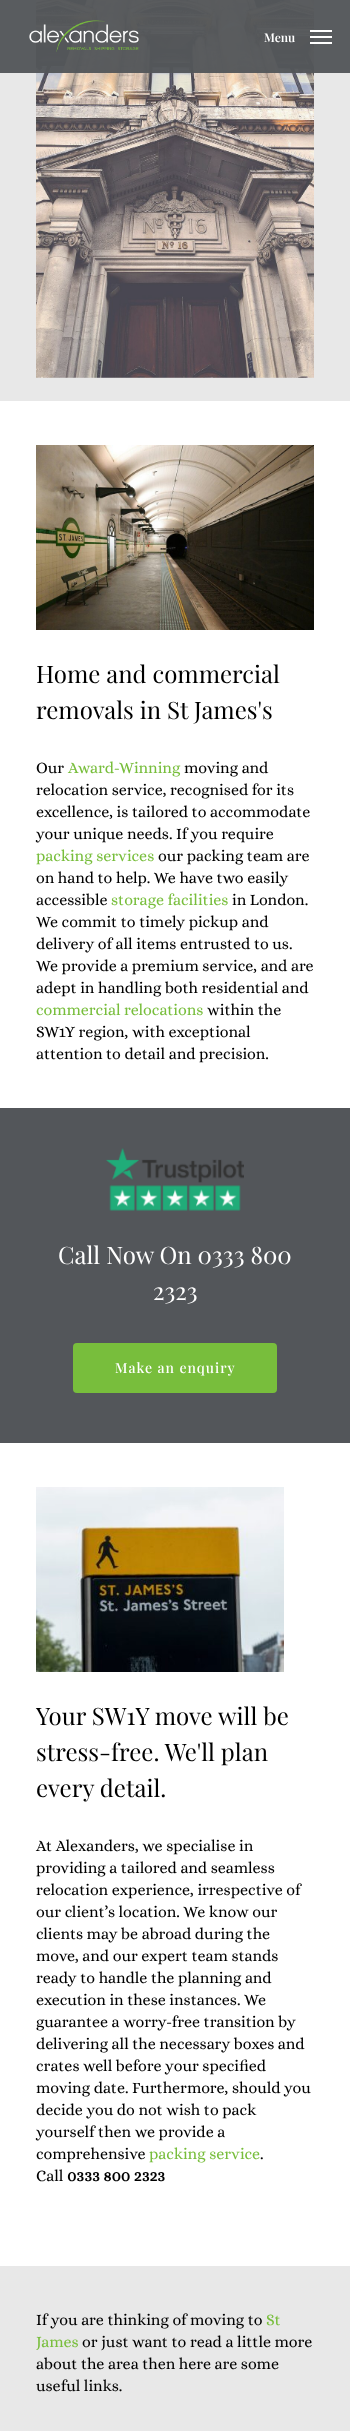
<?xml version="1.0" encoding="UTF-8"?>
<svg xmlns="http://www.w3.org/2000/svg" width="350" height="2431">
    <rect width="100%" height="100%" fill="#FFFFFF"/>
    <rect x="0" y="0" width="350" height="401" fill="#E8E8E8"/>
    <image x="36" y="0" width="278" height="378" href="img_02.png"/>
    <rect x="0" y="0" width="350" height="73" fill="#53565A" fill-opacity="0.96"/>
    <image x="29" y="20" width="110" height="32" href="img_01.png"/>
    <text x="264" y="42" font-family="Playfair Display" font-size="12" font-weight="600" fill="#FFFFFF">Menu</text>
    <rect x="310" y="30" width="22" height="2" fill="#FFFFFF"/>
    <rect x="310" y="42" width="22" height="2" fill="#FFFFFF"/>
    <rect x="310" y="36" width="22" height="2" fill="#FFFFFF"/>
    <image x="36" y="445" width="278" height="185" href="img_03.png"/>
    <text font-family="Playfair Display" font-size="24" fill="#000000">
        <tspan x="36" y="683">Home and commercial</tspan>
        <tspan x="36" y="719">removals in St James's</tspan>
    </text>
    <text x="36" y="773" font-family="Alice" font-size="16" fill="#000000">Our</text>
    <text x="68" y="773" font-family="Alice" font-size="16" fill="#78BE3C">Award-Winning</text>
    <text x="184" y="773" font-family="Alice" font-size="16" fill="#000000">moving and</text>
    <text font-family="Alice" font-size="16" fill="#000000">
        <tspan x="36" y="795">relocation service, recognised for its</tspan>
        <tspan x="36" y="817">excellence, is tailored to accommodate</tspan>
        <tspan x="36" y="839">your unique needs. If you require</tspan>
    </text>
    <text x="36" y="861" font-family="Alice" font-size="16" fill="#78BE3C">packing services</text>
    <text x="158" y="861" font-family="Alice" font-size="16" fill="#000000">our packing team are</text>
    <text font-family="Alice" font-size="16" fill="#000000">
        <tspan x="36" y="883">on hand to help. We have two easily</tspan>
        <tspan x="36" y="905">accessible</tspan>
    </text>
    <text x="111" y="905" font-family="Alice" font-size="16" fill="#78BE3C">storage facilities</text>
    <text x="232" y="905" font-family="Alice" font-size="16" fill="#000000">in London.</text>
    <text font-family="Alice" font-size="16" fill="#000000">
        <tspan x="36" y="927">We commit to timely pickup and</tspan>
        <tspan x="36" y="949">delivery of all items entrusted to us.</tspan>
        <tspan x="36" y="971">We provide a premium service, and are</tspan>
        <tspan x="36" y="993">adept in handling both residential and</tspan>
    </text>
    <text x="36" y="1015" font-family="Alice" font-size="16" fill="#78BE3C">commercial relocations</text>
    <text x="207" y="1015" font-family="Alice" font-size="16" fill="#000000">within the</text>
    <text font-family="Alice" font-size="16" fill="#000000">
        <tspan x="36" y="1037">SW1Y region, with exceptional</tspan>
        <tspan x="36" y="1059">attention to detail and precision.</tspan>
    </text>
    <rect x="0" y="1108" width="350" height="335" fill="#53565A"/>
    <image x="106" y="1148" width="138" height="63" href="img_04.png"/>
    <text x="58" y="1264" font-family="Playfair Display" font-size="24" fill="#FFFFFF">Call Now On 0333 800</text>
    <text x="153" y="1300" font-family="Playfair Display" font-size="24" fill="#FFFFFF">2323</text>
    <rect x="73" y="1343" width="204" height="50" rx="4" fill="#78BE3C"/>
    <text x="115" y="1373" font-family="Playfair Display" font-size="14" font-weight="500" letter-spacing="1" fill="#FFFFFF">Make an enquiry</text>
    <image x="36" y="1487" width="248" height="185" href="img_05.png"/>
    <text font-family="Playfair Display" font-size="24" fill="#000000">
        <tspan x="36" y="1725">Your SW1Y move will be</tspan>
        <tspan x="36" y="1761">stress-free. We'll plan</tspan>
        <tspan x="36" y="1797">every detail.</tspan>
    </text>
    <text font-family="Alice" font-size="16" fill="#000000">
        <tspan x="36" y="1851">At Alexanders, we specialise in</tspan>
        <tspan x="36" y="1873">providing a tailored and seamless</tspan>
        <tspan x="36" y="1895">relocation experience, irrespective of</tspan>
        <tspan x="36" y="1917">our client’s location. We know our</tspan>
        <tspan x="36" y="1939">clients may be abroad during the</tspan>
        <tspan x="36" y="1961">move, and our expert team stands</tspan>
        <tspan x="36" y="1983">ready to handle the planning and</tspan>
        <tspan x="36" y="2005">execution in these instances. We</tspan>
        <tspan x="36" y="2027">guarantee a worry-free transition by</tspan>
        <tspan x="36" y="2049">delivering all the necessary boxes and</tspan>
        <tspan x="36" y="2071">crates well before your specified</tspan>
        <tspan x="36" y="2093">moving date. Furthermore, should you</tspan>
        <tspan x="36" y="2115">decide you do not wish to pack</tspan>
        <tspan x="36" y="2137">yourself then we provide a</tspan>
        <tspan x="36" y="2159">comprehensive</tspan>
    </text>
    <text x="149" y="2159" font-family="Alice" font-size="16" fill="#78BE3C">packing service</text>
    <text x="260" y="2159" font-family="Alice" font-size="16" fill="#000000">.</text>
    <text x="36" y="2181" font-family="Alice" font-size="16" fill="#000000">Call</text>
    <text x="67" y="2181" font-family="Alice" font-size="16" font-weight="700" fill="#000000">0333 800 2323</text>
    <rect x="0" y="2266" width="350" height="165" fill="#E8E8E8"/>
    <text x="36" y="2325" font-family="Alice" font-size="16" fill="#000000">If you are thinking of moving to</text>
    <text x="266" y="2325" font-family="Alice" font-size="16" fill="#78BE3C">St</text>
    <text x="36" y="2347" font-family="Alice" font-size="16" fill="#78BE3C">James</text>
    <text x="82" y="2347" font-family="Alice" font-size="16" fill="#000000">or just want to read a little more</text>
    <text font-family="Alice" font-size="16" fill="#000000">
        <tspan x="36" y="2369">about the area then here are some</tspan>
        <tspan x="36" y="2391">useful links.</tspan>
    </text>
</svg>
